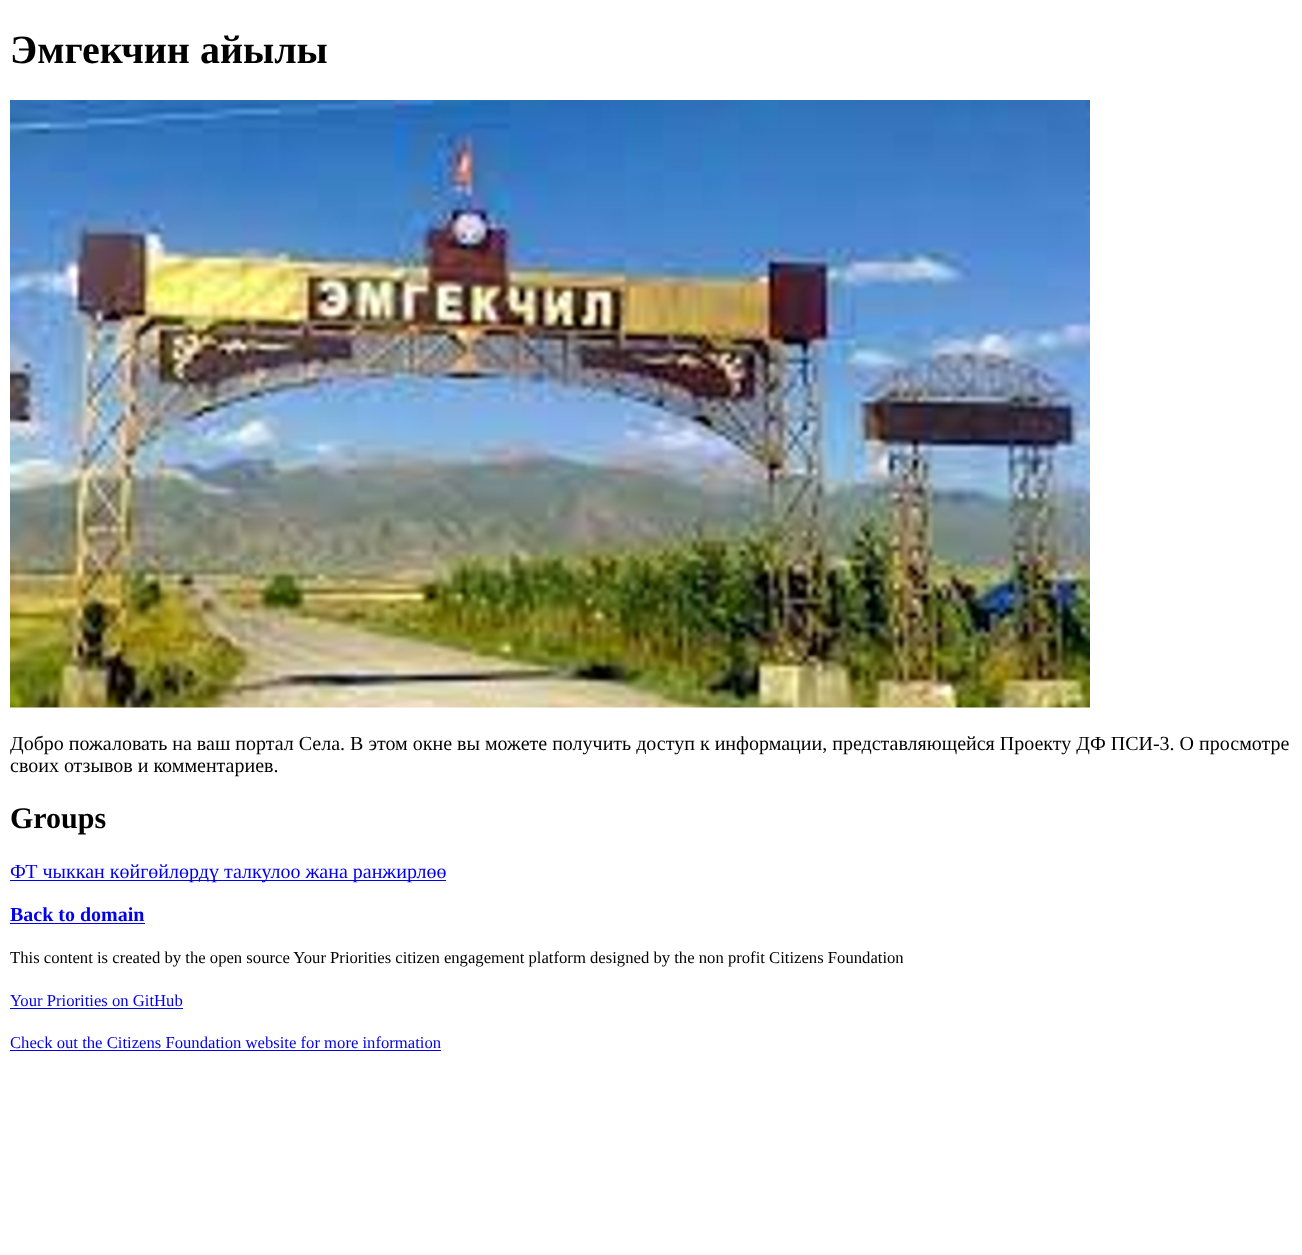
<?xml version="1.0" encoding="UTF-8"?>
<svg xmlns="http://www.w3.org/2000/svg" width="1302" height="1255">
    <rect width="100%" height="100%" fill="#FFFFFF"/>
    <text x="10" y="63" font-family="Liberation Serif" font-size="40" font-weight="700" fill="#000000">Эмгекчин айылы</text>
    <image x="10" y="100" width="1080" height="608" href="img_01.png"/>
    <text font-family="Liberation Serif" font-size="20" fill="#000000">
        <tspan x="10" y="750">Добро пожаловать на ваш портал Села. В этом окне вы можете получить доступ к информации, представляющейся Проекту ДФ ПСИ-3. О просмотре</tspan>
        <tspan x="10" y="772">своих отзывов и комментариев.</tspan>
    </text>
    <text x="10" y="828" font-family="Liberation Serif" font-size="30" font-weight="700" fill="#000000">Groups</text>
    <rect x="10" y="880" width="436" height="1" fill="#0000EE"/>
    <text x="10" y="878" font-family="Liberation Serif" font-size="20" fill="#0000EE">ФТ чыккан көйгөйлөрдү талкулоо жана ранжирлөө</text>
    <text x="10" y="921" font-family="Liberation Serif" font-size="20" font-weight="700" fill="#0000EE">Back to domain</text>
    <rect x="10" y="923" width="135" height="1" fill="#0000EE"/>
    <text x="10" y="963" font-family="Liberation Serif" font-size="16.67" fill="#000000">This content is created by the open source Your Priorities citizen engagement platform designed by the non profit Citizens Foundation</text>
    <text x="10" y="1006" font-family="Liberation Serif" font-size="16.67" fill="#0000EE">Your Priorities on GitHub</text>
    <rect x="10" y="1008" width="173" height="1" fill="#0000EE"/>
    <text x="10" y="1048" font-family="Liberation Serif" font-size="16.67" fill="#0000EE">Check out the Citizens Foundation website for more information</text>
    <rect x="10" y="1050" width="431" height="1" fill="#0000EE"/>
</svg>
